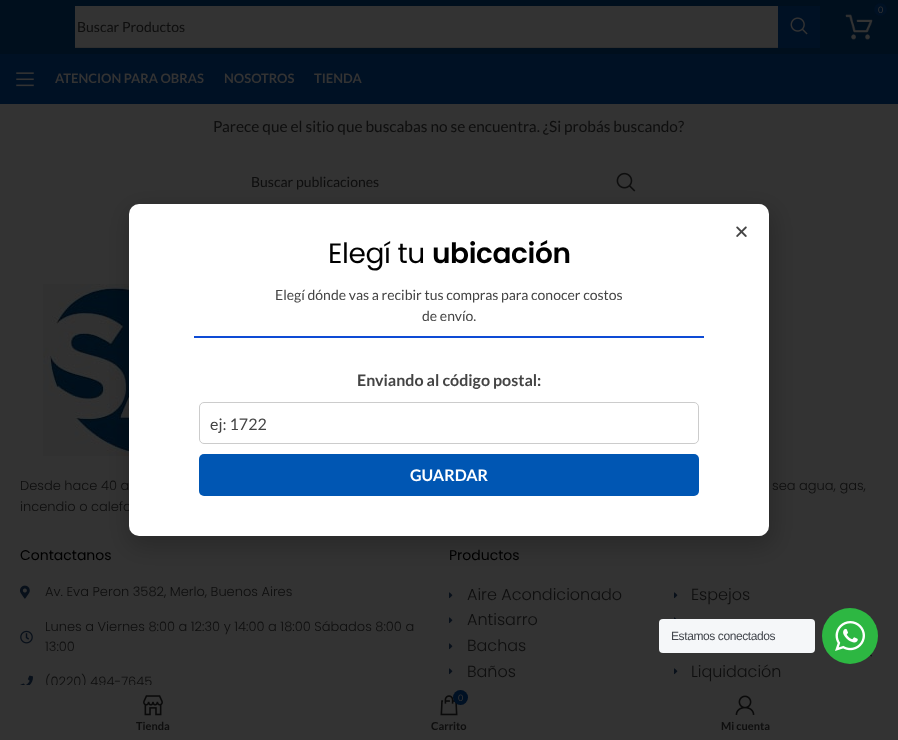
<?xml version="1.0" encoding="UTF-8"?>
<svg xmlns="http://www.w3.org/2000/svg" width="898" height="740">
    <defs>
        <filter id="blur1" x="-50%" y="-200%" width="200%" height="500%"><feGaussianBlur stdDeviation="11.5"/></filter>
    </defs>
    <rect width="100%" height="100%" fill="#333333"/>
    <rect x="0" y="0" width="898" height="54" fill="#000F1D"/>
    <circle cx="880.5" cy="9.5" r="6.5" fill="#001124"/>
    <text x="878" y="13" font-family="Lato" font-size="9" fill="#333333">0</text>
    <image x="845" y="14" width="28" height="26" href="img_01.png"/>
    <rect x="75" y="6" width="703" height="41" fill="#333333"/>
    <rect x="75" y="47" width="703" height="1" fill="#2E2E2E"/>
    <text x="77" y="32" font-family="Lato" font-size="14" fill="#0E0E0E">Buscar Productos</text>
    <rect x="778" y="6" width="42" height="42" fill="#001124"/>
    <image x="790" y="17" width="18" height="18" href="img_02.png"/>
    <rect x="0" y="54" width="898" height="50" fill="#001124"/>
    <image x="16" y="72" width="18" height="15" href="img_03.png"/>
    <text x="55" y="83" font-family="Lato" font-size="13" font-weight="700" fill="#333333">ATENCION PARA OBRAS</text>
    <text x="224" y="83" font-family="Lato" font-size="13" font-weight="700" fill="#333333">NOSOTROS</text>
    <text x="314" y="83" font-family="Lato" font-size="13" font-weight="700" fill="#333333">TIENDA</text>
    <text x="213" y="132" font-family="Lato" font-size="15.4" fill="#0E0E0E">Parece que el sitio que buscabas no se encuentra. ¿Si probás buscando?</text>
    <text x="251" y="187" font-family="Lato" font-size="14" fill="#0E0E0E">Buscar publicaciones</text>
    <image x="616" y="172" width="20" height="20" href="img_04.png"/>
    <image x="43" y="284" width="86" height="172" href="img_05.png"/>
    <text x="20" y="490" font-family="Poppins" font-size="13" font-weight="300" fill="#0E0E0E">Desde hace 40 a</text>
    <text x="772" y="490" font-family="Poppins" font-size="13" font-weight="300" fill="#0E0E0E">sea agua, gas,</text>
    <text x="20" y="511" font-family="Poppins" font-size="13" font-weight="300" fill="#0E0E0E">incendio o calefa</text>
    <text x="20" y="560" font-family="Poppins" font-size="14" fill="#000000">Contactanos</text>
    <image x="20" y="585" width="10" height="14" href="img_06.png"/>
    <text x="45" y="596" font-family="Poppins" font-size="13" font-weight="300" fill="#0E0E0E">Av. Eva Peron 3582, Merlo, Buenos Aires</text>
    <image x="20" y="630" width="13" height="14" href="img_07.png"/>
    <text font-family="Poppins" font-size="13" font-weight="300" fill="#0E0E0E">
        <tspan x="45" y="631">Lunes a Viernes 8:00 a 12:30 y 14:00 a 18:00 Sábados 8:00 a</tspan>
        <tspan x="45" y="651">13:00</tspan>
    </text>
    <image x="20" y="675" width="13" height="10" href="img_08.png"/>
    <text x="45" y="686" font-family="Poppins" font-size="13" font-weight="300" fill="#0E0E0E">(0220) 494-7645</text>
    <text x="449" y="560" font-family="Poppins" font-size="14" fill="#000000">Productos</text>
    <image x="449" y="592" width="4" height="7" href="img_09.png"/>
    <text x="467" y="600" font-family="Poppins" font-size="16" font-weight="300" fill="#0E0E0E">Aire Acondicionado</text>
    <image x="449" y="617" width="4" height="7" href="img_09.png"/>
    <text x="467" y="625" font-family="Poppins" font-size="16" font-weight="300" fill="#0E0E0E">Antisarro</text>
    <image x="449" y="643" width="4" height="7" href="img_09.png"/>
    <text x="467" y="651" font-family="Poppins" font-size="16" font-weight="300" fill="#0E0E0E">Bachas</text>
    <image x="449" y="668" width="4" height="7" href="img_09.png"/>
    <text x="467" y="677" font-family="Poppins" font-size="16" font-weight="300" fill="#0E0E0E">Baños</text>
    <image x="674" y="592" width="4" height="7" href="img_09.png"/>
    <text x="691" y="600" font-family="Poppins" font-size="16" font-weight="300" fill="#0E0E0E">Espejos</text>
    <image x="674" y="617" width="3" height="2" href="img_10.png"/>
    <image x="674" y="668" width="4" height="7" href="img_09.png"/>
    <text x="691" y="677" font-family="Poppins" font-size="16" font-weight="300" fill="#0E0E0E">Liquidación</text>
    <rect x="128" y="209" width="646" height="338" rx="13" fill="#000000" fill-opacity="0.2" filter="url(#blur1)"/>
    <rect x="129" y="204" width="640" height="332" rx="10" fill="#FFFFFF"/>
    <image x="736" y="226" width="11" height="11" href="img_11.png"/>
    <text x="328" y="263" font-family="Poppins" font-size="28" letter-spacing="-0.4" fill="#000000">Elegí tu</text>
    <text x="432" y="263" font-family="Poppins" font-size="28" font-weight="600" letter-spacing="-0.4" fill="#000000">ubicación</text>
    <text x="275" y="300" font-family="Lato" font-size="14" fill="#444444">Elegí dónde vas a recibir tus compras para conocer costos</text>
    <text x="422" y="321" font-family="Lato" font-size="14" fill="#444444">de envío.</text>
    <rect x="194" y="336" width="510" height="2" fill="#0E4BD5"/>
    <text x="357" y="386" font-family="Lato" font-size="16" font-weight="700" fill="#444444">Enviando al código postal:</text>
    <rect x="199.5" y="402.5" width="499" height="41" rx="4.5" fill="none" stroke="#CCCCCC"/>
    <text x="210" y="430" font-family="Lato" font-size="16" fill="#444444">ej: 1722</text>
    <rect x="199" y="454" width="500" height="42" rx="5" fill="#0056B3"/>
    <text x="410" y="481" font-family="Lato" font-size="16" font-weight="700" fill="#FFFFFF">GUARDAR</text>
    <rect x="659" y="619" width="156" height="34" rx="4" fill="#F5F7F9"/>
    <text x="671" y="640" font-family="Liberation Sans" font-size="12" letter-spacing="-0.4" fill="#43474E">Estamos conectados</text>
    <image x="869" y="654" width="3" height="3" href="img_13.png"/>
    <circle cx="850" cy="636" r="28" fill="#2DB742"/>
    <image x="835" y="621" width="30" height="30" href="img_12.png"/>
    <rect x="47" y="685" width="104" height="4" fill="#333333"/>
    <image x="143" y="695" width="20" height="21" href="img_14.png"/>
    <text x="136" y="730" font-family="Lato" font-size="11" font-weight="700" fill="#0E0E0E">Tienda</text>
    <image x="440" y="695" width="18" height="21" href="img_15.png"/>
    <circle cx="460.5" cy="697.5" r="7.5" fill="#001124"/>
    <text x="458" y="701" font-family="Lato" font-size="9" fill="#333333">0</text>
    <text x="431" y="730" font-family="Lato" font-size="11" font-weight="700" fill="#0E0E0E">Carrito</text>
    <image x="735" y="695" width="20" height="20" href="img_16.png"/>
    <text x="721" y="730" font-family="Lato" font-size="11" font-weight="700" fill="#0E0E0E">Mi cuenta</text>
</svg>
